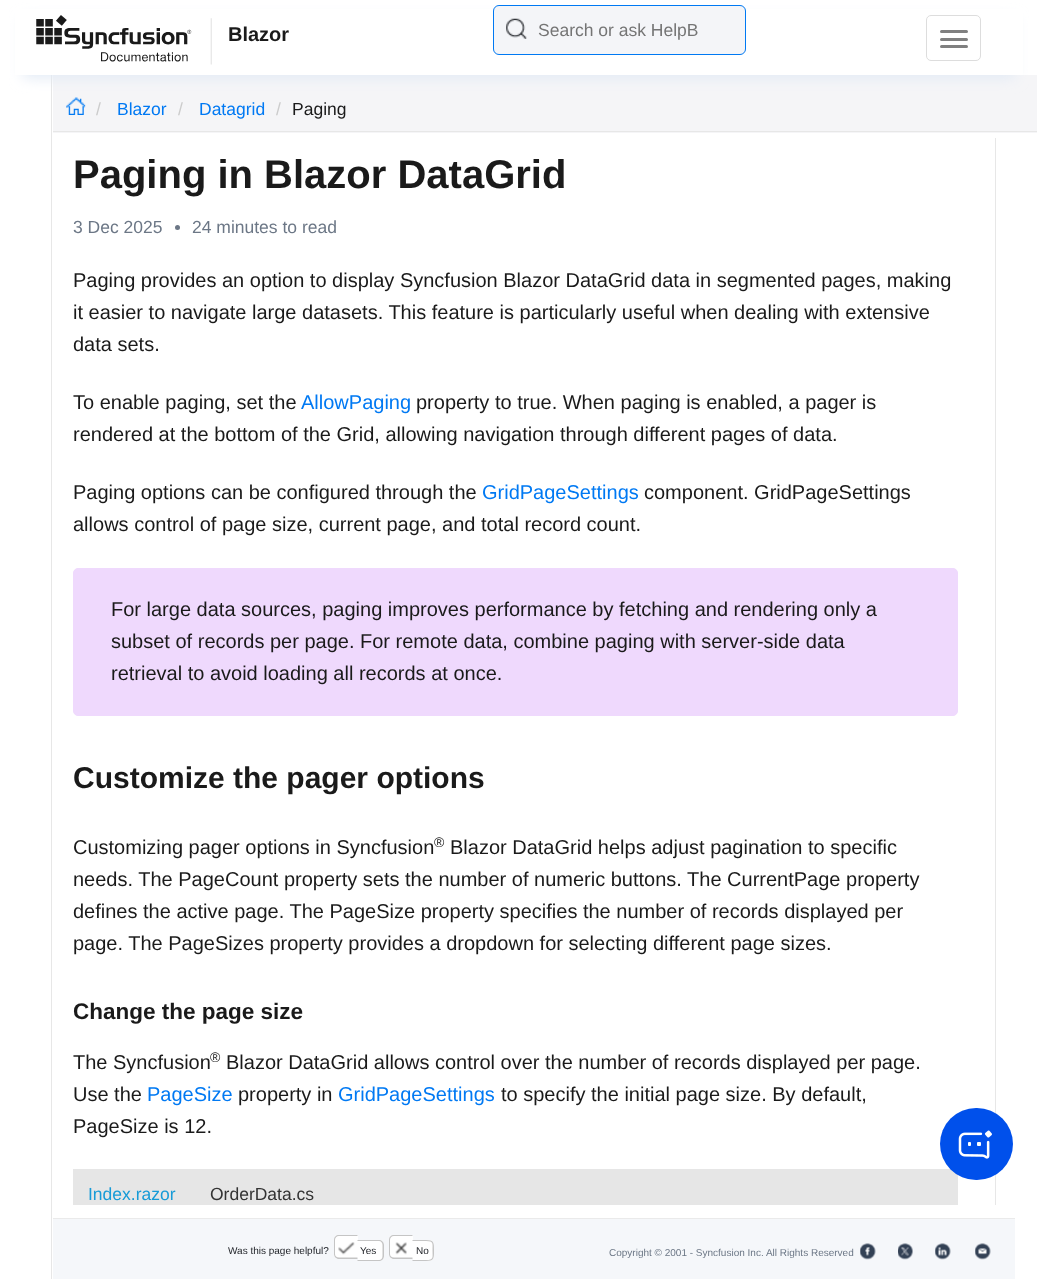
<?xml version="1.0" encoding="UTF-8"?>
<svg xmlns="http://www.w3.org/2000/svg" width="1037" height="1279">
    <defs>
        <filter id="blur1" x="-50%" y="-200%" width="200%" height="500%"><feGaussianBlur stdDeviation="7"/></filter>
    </defs>
    <rect width="100%" height="100%" fill="#FFFFFF"/>
    <rect x="53" y="75" width="984" height="58" fill="#F5F5F7"/>
    <image x="66" y="97" width="20" height="18" href="img_03.png"/>
    <rect x="51" y="75" width="1" height="1204" fill="#E7E7E7"/>
    <rect x="23" y="18" width="992" height="60" fill="#E2EAF5" filter="url(#blur1)"/>
    <rect x="15" y="9" width="1008" height="66" fill="#FFFFFF"/>
    <image x="36" y="15" width="176" height="50" href="img_01.png"/>
    <text x="228" y="41" font-family="Liberation Sans" font-size="20" font-weight="700" fill="#1A1A1A">Blazor</text>
    <rect x="493" y="5" width="253" height="50" rx="6" fill="#F4F5F8"/>
    <image x="506" y="18" width="21" height="21" href="img_02.png"/>
    <rect x="493.5" y="5.5" width="252" height="49" rx="5.5" fill="none" stroke="#0079F3"/>
    <text x="538" y="36" font-family="Liberation Sans" font-size="17.5" fill="#757575">Search or ask HelpB</text>
    <rect x="926.5" y="15.5" width="54" height="45" rx="4.5" fill="none" stroke="#DDDDDD"/>
    <rect x="940" y="30" width="28" height="3" rx="1.5" fill="#808080"/>
    <rect x="940" y="38" width="28" height="3" rx="1.5" fill="#808080"/>
    <rect x="940" y="45" width="28" height="3" rx="1.5" fill="#808080"/>
    <rect x="53" y="131" width="984" height="1" fill="#E7E7E7"/>
    <text x="96" y="115" font-family="Liberation Sans" font-size="17.5" fill="#CCCCCC">/</text>
    <text x="117" y="115" font-family="Liberation Sans" font-size="17.5" fill="#0079F3">Blazor</text>
    <text x="178" y="115" font-family="Liberation Sans" font-size="17.5" fill="#CCCCCC">/</text>
    <text x="199" y="115" font-family="Liberation Sans" font-size="17.5" fill="#0079F3">Datagrid</text>
    <text x="276" y="115" font-family="Liberation Sans" font-size="17.5" fill="#CCCCCC">/</text>
    <text x="292" y="115" font-family="Liberation Sans" font-size="17.5" fill="#1A1A1A">Paging</text>
    <rect x="995" y="138" width="1" height="1067" fill="#E7E7E7"/>
    <text x="73" y="188" font-family="Liberation Sans" font-size="40" font-weight="700" fill="#1A1A1A">Paging in Blazor DataGrid</text>
    <text x="73" y="233" font-family="Liberation Sans" font-size="17.5" fill="#6C7786">3 Dec 2025</text>
    <circle cx="177.5" cy="227.5" r="2.5" fill="#6C7786"/>
    <text x="192" y="233" font-family="Liberation Sans" font-size="17.5" fill="#6C7786">24 minutes to read</text>
    <text font-family="Liberation Sans" font-size="20" fill="#1A1A1A">
        <tspan x="73" y="287">Paging provides an option to display Syncfusion Blazor DataGrid data in segmented pages, making</tspan>
        <tspan x="73" y="319">it easier to navigate large datasets. This feature is particularly useful when dealing with extensive</tspan>
        <tspan x="73" y="351">data sets.</tspan>
    </text>
    <text x="73" y="409" font-family="Liberation Sans" font-size="20" fill="#1A1A1A">To enable paging, set the</text>
    <text x="301" y="409" font-family="Liberation Sans" font-size="20" fill="#0079F3">AllowPaging</text>
    <text x="416" y="409" font-family="Liberation Sans" font-size="20" fill="#1A1A1A">property to true. When paging is enabled, a pager is</text>
    <text x="73" y="441" font-family="Liberation Sans" font-size="20" fill="#1A1A1A">rendered at the bottom of the Grid, allowing navigation through different pages of data.</text>
    <text x="73" y="499" font-family="Liberation Sans" font-size="20" fill="#1A1A1A">Paging options can be configured through the</text>
    <text x="482" y="499" font-family="Liberation Sans" font-size="20" fill="#0079F3">GridPageSettings</text>
    <text x="644" y="499" font-family="Liberation Sans" font-size="20" fill="#1A1A1A">component. GridPageSettings</text>
    <text x="73" y="531" font-family="Liberation Sans" font-size="20" fill="#1A1A1A">allows control of page size, current page, and total record count.</text>
    <rect x="73.5" y="568.5" width="884" height="147" rx="4.5" fill="#EFD9FD" stroke="#EFD9FD"/>
    <text font-family="Liberation Sans" font-size="20" fill="#1A1A1A">
        <tspan x="111" y="616">For large data sources, paging improves performance by fetching and rendering only a</tspan>
        <tspan x="111" y="648">subset of records per page. For remote data, combine paging with server-side data</tspan>
        <tspan x="111" y="680">retrieval to avoid loading all records at once.</tspan>
    </text>
    <text x="73" y="788" font-family="Liberation Sans" font-size="30" font-weight="700" fill="#1A1A1A">Customize the pager options</text>
    <text x="73" y="854" font-family="Liberation Sans" font-size="20" fill="#1A1A1A">Customizing pager options in Syncfusion</text>
    <text x="434" y="847" font-family="Liberation Sans" font-size="14" fill="#1A1A1A">®</text>
    <text x="450" y="854" font-family="Liberation Sans" font-size="20" fill="#1A1A1A">Blazor DataGrid helps adjust pagination to specific</text>
    <text font-family="Liberation Sans" font-size="20" fill="#1A1A1A">
        <tspan x="73" y="886">needs. The PageCount property sets the number of numeric buttons. The CurrentPage property</tspan>
        <tspan x="73" y="918">defines the active page. The PageSize property specifies the number of records displayed per</tspan>
        <tspan x="73" y="950">page. The PageSizes property provides a dropdown for selecting different page sizes.</tspan>
    </text>
    <text x="73" y="1019" font-family="Liberation Sans" font-size="22.5" font-weight="700" fill="#1A1A1A">Change the page size</text>
    <text x="73" y="1069" font-family="Liberation Sans" font-size="20" fill="#1A1A1A">The Syncfusion</text>
    <text x="210" y="1062" font-family="Liberation Sans" font-size="14" fill="#1A1A1A">®</text>
    <text x="226" y="1069" font-family="Liberation Sans" font-size="20" fill="#1A1A1A">Blazor DataGrid allows control over the number of records displayed per page.</text>
    <text x="73" y="1101" font-family="Liberation Sans" font-size="20" fill="#1A1A1A">Use the</text>
    <text x="147" y="1101" font-family="Liberation Sans" font-size="20" fill="#0079F3">PageSize</text>
    <text x="238" y="1101" font-family="Liberation Sans" font-size="20" fill="#1A1A1A">property in</text>
    <text x="338" y="1101" font-family="Liberation Sans" font-size="20" fill="#0079F3">GridPageSettings</text>
    <text x="501" y="1101" font-family="Liberation Sans" font-size="20" fill="#1A1A1A">to specify the initial page size. By default,</text>
    <text x="73" y="1133" font-family="Liberation Sans" font-size="20" fill="#1A1A1A">PageSize is 12.</text>
    <rect x="73" y="1169" width="885" height="36" fill="#E6E6E6"/>
    <text x="88" y="1200" font-family="Liberation Sans" font-size="17.5" fill="#179BD7">Index.razor</text>
    <text x="210" y="1200" font-family="Liberation Sans" font-size="17.5" fill="#333333">OrderData.cs</text>
    <rect x="940" y="1108" width="73" height="72" rx="36" fill="#0050EB"/>
    <image x="958" y="1130" width="34" height="29" href="img_04.png"/>
    <rect x="53" y="1219" width="962" height="60" fill="#F5F7FA"/>
    <rect x="53" y="1218" width="962" height="1" fill="#EAEAEA"/>
    <text x="228" y="1254" font-family="Liberation Sans" font-size="10" fill="#22252A">Was this page helpful?</text>
    <path d="M 339 1235 H 358 V 1259 H 339 C 336 1259 334 1257 334 1254 V 1240 C 334 1237 336 1235 339 1235 Z" fill="#FFFFFF"/>
    <path d="M 339 1235 H 357.5 V 1259 H 339 C 336 1259 334 1256.5 334 1254 V 1240 C 334 1237 336 1235 339 1235 Z M 339 1236 H 357.5 V 1257.5 H 339 C 336.5 1257.5 335 1256 335 1254 V 1240 C 335 1238 336.5 1236 339 1236 Z" fill="#C5C5C5" fill-rule="evenodd"/>
    <path d="M 358 1240 H 379 C 382 1240 384 1242 384 1245 V 1256 C 384 1259 382 1261 379 1261 H 358 Z" fill="#FFFFFF"/>
    <path d="M 357.5 1240 H 379 C 381.5 1240 384 1242 384 1245 V 1256 C 384 1259 381.5 1261 379 1261 H 357.5 Z M 357.5 1241 H 379 C 381 1241 382.5 1243 382.5 1245 V 1256 C 382.5 1258.5 381 1260 379 1260 H 357.5 Z" fill="#C5C5C5" fill-rule="evenodd"/>
    <image x="338" y="1242" width="17" height="13" href="img_05.png"/>
    <text x="360" y="1254" font-family="Liberation Sans" font-size="10" fill="#22252A">Yes</text>
    <path d="M 394 1235 H 413 V 1259 H 394 C 391 1259 389 1257 389 1254 V 1240 C 389 1237 391 1235 394 1235 Z" fill="#FFFFFF"/>
    <path d="M 394 1235 H 412.5 V 1259 H 394 C 391 1259 389 1256.5 389 1254 V 1240 C 389 1237 391 1235 394 1235 Z M 394 1236 H 412.5 V 1257.5 H 394 C 391.5 1257.5 390 1256 390 1254 V 1240 C 390 1238 391.5 1236 394 1236 Z" fill="#C5C5C5" fill-rule="evenodd"/>
    <path d="M 413 1240 H 429 C 432 1240 434 1242 434 1245 V 1256 C 434 1259 432 1261 429 1261 H 413 Z" fill="#FFFFFF"/>
    <path d="M 412.5 1240 H 426 C 434.5 1240 434 1243 434 1250.5 C 434 1258 434.5 1261 426 1261 H 412.5 Z M 412.5 1241 H 426 C 434 1241 432.5 1244 432.5 1250.5 C 432.5 1257.5 434 1260 426 1260 H 412.5 Z" fill="#C5C5C5" fill-rule="evenodd"/>
    <image x="395" y="1242" width="12" height="13" href="img_06.png"/>
    <text x="416" y="1254" font-family="Liberation Sans" font-size="10" fill="#22252A">No</text>
    <text x="609" y="1256" font-family="Liberation Sans" font-size="10" fill="#6C7786">Copyright © 2001 - Syncfusion Inc. All Rights Reserved</text>
    <image x="860" y="1243" width="16" height="17" href="img_07.png"/>
    <image x="898" y="1243" width="15" height="17" href="img_08.png"/>
    <image x="935" y="1243" width="16" height="17" href="img_09.png"/>
    <image x="975" y="1243" width="16" height="17" href="img_10.png"/>
</svg>
